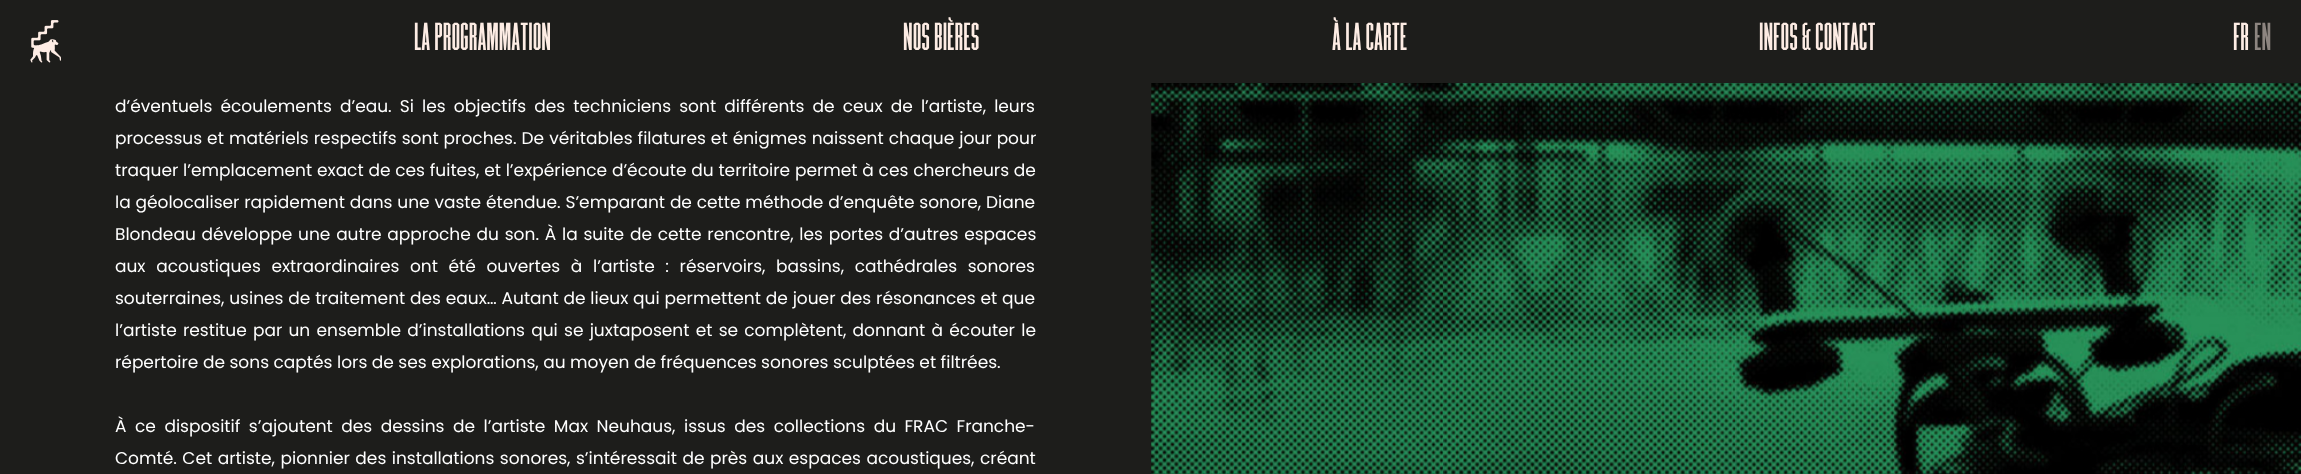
<?xml version="1.0" encoding="UTF-8"?>
<svg xmlns="http://www.w3.org/2000/svg" width="2301" height="474">
    <rect width="100%" height="100%" fill="#1D1D1B"/>
    <image x="30" y="20" width="31" height="43" href="img_01.png"/>
    <text x="414" y="50" font-family="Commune" font-size="36" fill="#FDECE4">LA PROGRAMMATION</text>
    <text x="903" y="50" font-family="Commune" font-size="36" fill="#FDECE4">NOS BIÈRES</text>
    <text x="1332" y="50" font-family="Commune" font-size="36" fill="#FDECE4">À LA CARTE</text>
    <text x="1759" y="50" font-family="Commune" font-size="36" fill="#FDECE4">INFOS &amp; CONTACT</text>
    <text x="2233" y="50" font-family="Commune" font-size="36" fill="#FDECE4">FR</text>
    <text x="2254" y="50" font-family="Commune" font-size="36" fill="#8D8580">EN</text>
    <text font-family="Poppins" font-size="17" fill="#FFFFFF">
        <tspan x="115" y="112" word-spacing="3.6">d’éventuels écoulements d’eau. Si les objectifs des techniciens sont différents de ceux de l’artiste, leurs</tspan>
        <tspan x="115" y="144" word-spacing="0.5">processus et matériels respectifs sont proches. De véritables filatures et énigmes naissent chaque jour pour</tspan>
        <tspan x="115" y="176" word-spacing="0.25">traquer l’emplacement exact de ces fuites, et l’expérience d’écoute du territoire permet à ces chercheurs de</tspan>
        <tspan x="115" y="208" word-spacing="0.3">la géolocaliser rapidement dans une vaste étendue. S’emparant de cette méthode d’enquête sonore, Diane</tspan>
        <tspan x="115" y="240" word-spacing="1.25">Blondeau développe une autre approche du son. À la suite de cette rencontre, les portes d’autres espaces</tspan>
        <tspan x="115" y="272" word-spacing="6.1">aux acoustiques extraordinaires ont été ouvertes à l’artiste : réservoirs, bassins, cathédrales sonores</tspan>
        <tspan x="115" y="304" word-spacing="0.3">souterraines, usines de traitement des eaux… Autant de lieux qui permettent de jouer des résonances et que</tspan>
        <tspan x="115" y="336" word-spacing="1.7">l’artiste restitue par un ensemble d’installations qui se juxtaposent et se complètent, donnant à écouter le</tspan>
        <tspan x="115" y="368">répertoire de sons captés lors de ses explorations, au moyen de fréquences sonores sculptées et filtrées.</tspan>
    </text>
    <text font-family="Poppins" font-size="17" fill="#FFFFFF">
        <tspan x="115" y="432" word-spacing="4">À ce dispositif s’ajoutent des dessins de l’artiste Max Neuhaus, issus des collections du FRAC Franche-</tspan>
        <tspan x="115" y="464" word-spacing="1">Comté. Cet artiste, pionnier des installations sonores, s’intéressait de près aux espaces acoustiques, créant</tspan>
    </text>
    <image x="1151" y="83" width="1150" height="391" href="img_02.png"/>
</svg>
